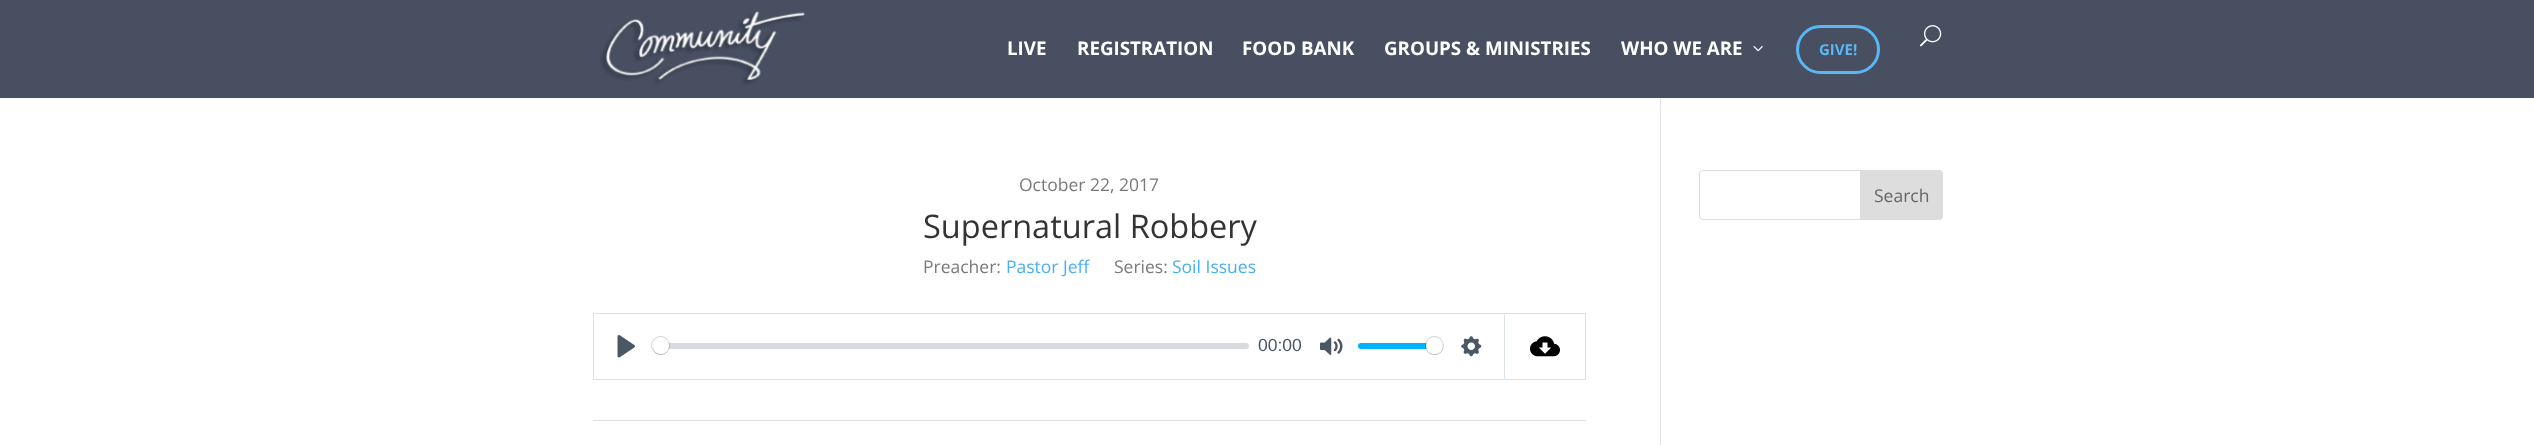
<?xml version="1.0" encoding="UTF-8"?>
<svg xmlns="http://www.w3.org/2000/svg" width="2534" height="445">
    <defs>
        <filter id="blur1" x="-50%" y="-200%" width="200%" height="500%"><feGaussianBlur stdDeviation="0.5"/></filter>
    </defs>
    <rect width="100%" height="100%" fill="#FFFFFF"/>
    <rect x="0" y="0" width="2534" height="98" fill="#474F61"/>
    <image x="600" y="11" width="205" height="74" href="img_01.png"/>
    <image x="1920" y="25" width="22" height="22" href="img_02.png"/>
    <text x="1007" y="55" font-family="Open Sans" font-size="18.75" font-weight="700" fill="#FFFFFF">LIVE</text>
    <text x="1077" y="55" font-family="Open Sans" font-size="18.75" font-weight="700" fill="#FFFFFF">REGISTRATION</text>
    <text x="1242" y="55" font-family="Open Sans" font-size="18.75" font-weight="700" fill="#FFFFFF">FOOD BANK</text>
    <text x="1384" y="55" font-family="Open Sans" font-size="18.75" font-weight="700" fill="#FFFFFF">GROUPS &amp; MINISTRIES</text>
    <text x="1621" y="55" font-family="Open Sans" font-size="18.75" font-weight="700" fill="#FFFFFF">WHO WE ARE</text>
    <image x="1753" y="46" width="10" height="6" href="img_03.png"/>
    <rect x="1797.5" y="26.5" width="81" height="46" rx="23" fill="none" stroke="#59B7F3" stroke-width="3"/>
    <text x="1819" y="55" font-family="Open Sans" font-size="15" font-weight="700" fill="#59B7F3">GIVE!</text>
    <rect x="1660" y="98" width="1" height="347" fill="#E2E2E2"/>
    <text x="1019" y="191" font-family="Open Sans" font-size="17.5" fill="#7A7A7A">October 22, 2017</text>
    <text x="923" y="238" font-family="Open Sans" font-size="32.5" fill="#333333">Supernatural Robbery</text>
    <text x="923" y="273" font-family="Open Sans" font-size="17.5" fill="#7A7A7A">Preacher:</text>
    <text x="1006" y="273" font-family="Open Sans" font-size="17.5" fill="#49AFF4">Pastor Jeff</text>
    <text x="1114" y="273" font-family="Open Sans" font-size="17.5" fill="#7A7A7A">Series:</text>
    <text x="1172" y="273" font-family="Open Sans" font-size="17.5" fill="#49AFF4">Soil Issues</text>
    <rect x="593.5" y="313.5" width="911" height="66" fill="none" stroke="#DBE3E8"/>
    <image x="617" y="335" width="18" height="23" href="img_04.png"/>
    <rect x="653" y="343" width="596" height="6" rx="3" fill="#C1C9D1" fill-opacity="0.66"/>
    <circle cx="660.5" cy="345.5" r="9" fill="none" stroke="#23292F" stroke-opacity="0.2"/>
    <rect x="653" y="339" width="16" height="16" rx="8" fill="#000000" fill-opacity="0.15" filter="url(#blur1)"/>
    <circle cx="661" cy="346" r="8" fill="#FFFFFF"/>
    <text x="1258" y="351" font-family="Liberation Sans" font-size="17.5" fill="#4A5764">00:00</text>
    <image x="1320" y="337" width="23" height="18" href="img_05.png"/>
    <rect x="1358" y="343" width="85" height="6" rx="3" fill="#00B3FF"/>
    <circle cx="1434.5" cy="345.5" r="9" fill="none" stroke="#23292F" stroke-opacity="0.2"/>
    <rect x="1426" y="339" width="17" height="16" rx="8" fill="#000000" fill-opacity="0.15" filter="url(#blur1)"/>
    <rect x="1426" y="338" width="17" height="16" rx="8" fill="#FFFFFF"/>
    <image x="1461" y="336" width="21" height="21" href="img_06.png"/>
    <rect x="1505" y="313" width="81" height="1" fill="#DBE3E8"/>
    <rect x="1585" y="313" width="1" height="67" fill="#DBE3E8"/>
    <rect x="1505" y="379" width="81" height="1" fill="#DBE3E8"/>
    <image x="1530" y="336" width="30" height="21" href="img_07.png"/>
    <rect x="593" y="420" width="993" height="1" fill="#DDDDDD"/>
    <rect x="1699.5" y="170.5" width="243" height="49" rx="3.5" fill="none" stroke="#DDDDDD"/>
    <path d="M 1860.5 170.5 H 1939 C 1941 170.5 1942.5 172 1942.5 174 V 216 C 1942.5 218 1941 219.5 1939 219.5 H 1860.5 Z" fill="#DDDDDD" stroke="#DDDDDD"/>
    <text x="1874" y="202" font-family="Open Sans" font-size="17.5" fill="#666666">Search</text>
</svg>
